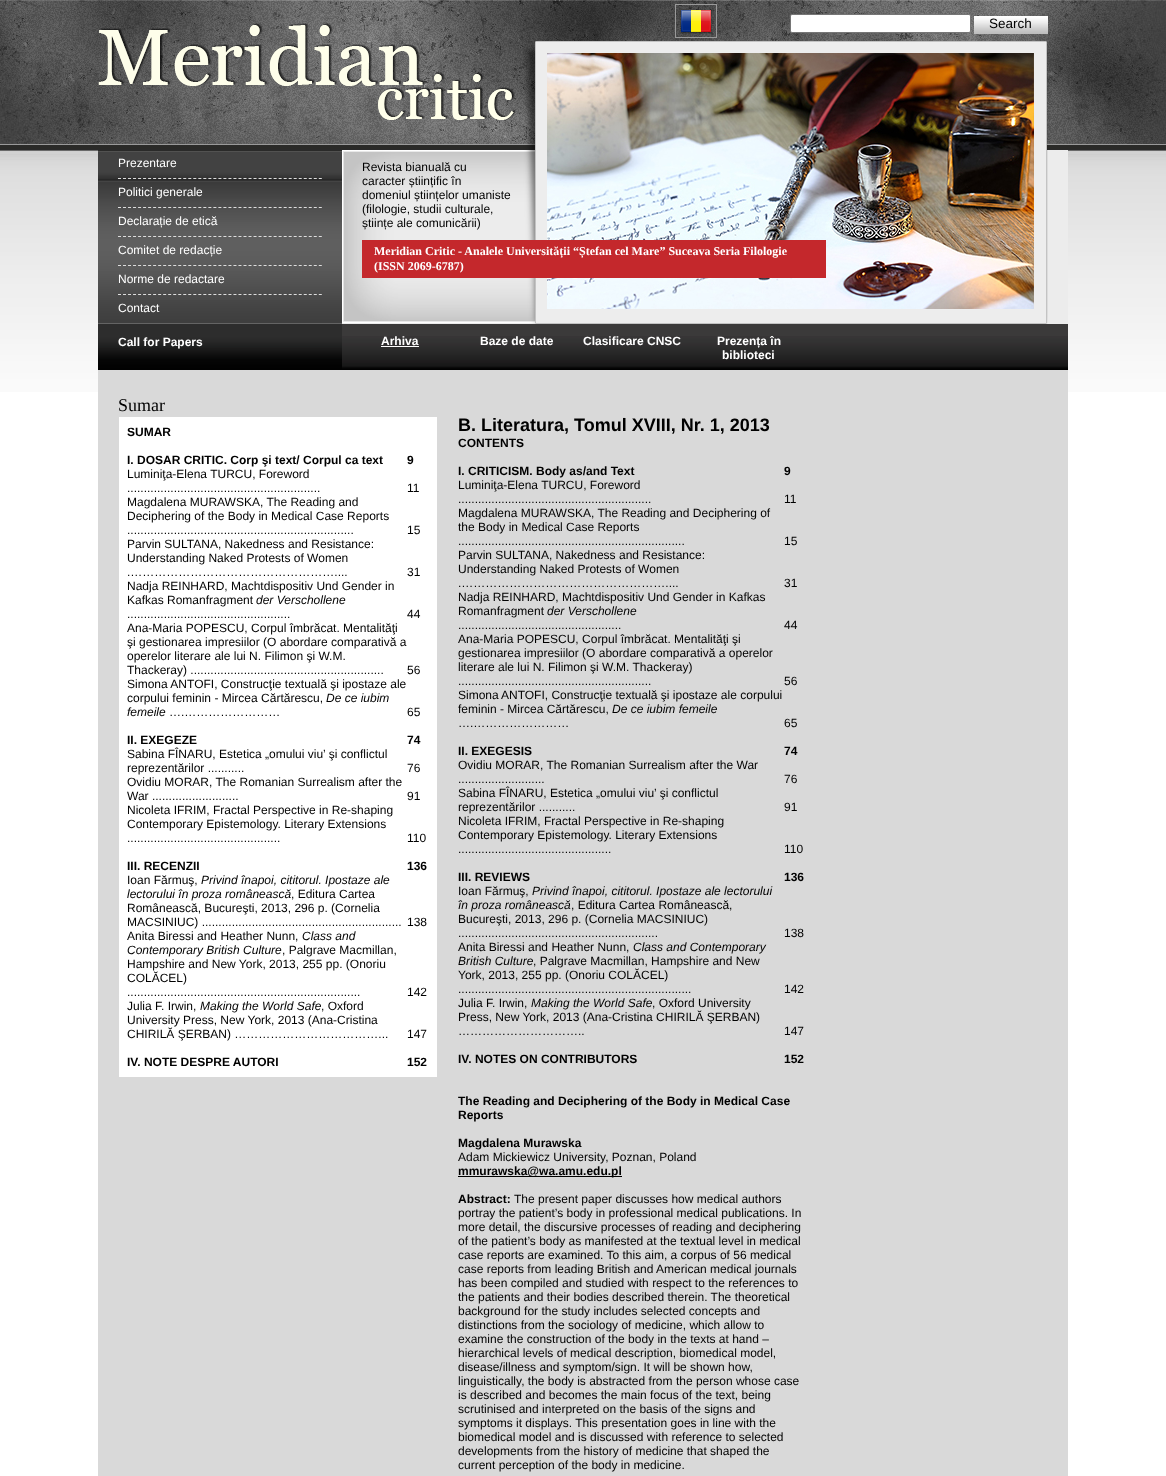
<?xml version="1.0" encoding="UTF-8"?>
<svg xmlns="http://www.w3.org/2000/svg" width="1166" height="1476">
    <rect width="100%" height="100%" fill="#FFFFFF"/>
    <image x="0" y="144" width="1166" height="248" href="img_01.png"/>
    <image x="0" y="0" width="1166" height="144" href="img_02.png"/>
    <image x="98" y="23" width="417" height="97" href="img_03.png"/>
    <image x="98" y="23" width="417" height="97" href="img_04.png"/>
    <rect x="675.5" y="4.5" width="41" height="33" fill="none" stroke="#999999"/>
    <image x="680" y="9" width="32" height="25" href="img_05.png"/>
    <rect x="790.5" y="14.5" width="180" height="18" rx="1.5" fill="#FFFFFF" stroke="#767676"/>
    <image x="974" y="16" width="74" height="18" href="img_06.png"/>
    <text x="989" y="28" font-family="Liberation Sans" font-size="13.5" fill="#000000">Search</text>
    <image x="98" y="150" width="244" height="220" href="img_07.png"/>
    <text x="118" y="167" font-family="Liberation Sans" font-size="12" fill="#FFFFFF">Prezentare</text>
    <path d="M 118 178.5 H 322" fill="none" stroke="#DDDDDD" stroke-dasharray="3 2.02"/>
    <text x="118" y="196" font-family="Liberation Sans" font-size="12" fill="#FFFFFF">Politici generale</text>
    <path d="M 118 207.5 H 322" fill="none" stroke="#DDDDDD" stroke-dasharray="3 2.02"/>
    <text x="118" y="225" font-family="Liberation Sans" font-size="12" fill="#FFFFFF">Declarație de etică</text>
    <path d="M 118 236.5 H 322" fill="none" stroke="#DDDDDD" stroke-dasharray="3 2.02"/>
    <text x="118" y="254" font-family="Liberation Sans" font-size="12" fill="#FFFFFF">Comitet de redacție</text>
    <path d="M 118 265.5 H 322" fill="none" stroke="#DDDDDD" stroke-dasharray="3 2.02"/>
    <text x="118" y="283" font-family="Liberation Sans" font-size="12" fill="#FFFFFF">Norme de redactare</text>
    <path d="M 118 294.5 H 322" fill="none" stroke="#DDDDDD" stroke-dasharray="3 2.02"/>
    <text x="118" y="312" font-family="Liberation Sans" font-size="12" fill="#FFFFFF">Contact</text>
    <text x="118" y="346" font-family="Liberation Sans" font-size="12" font-weight="700" fill="#FFFFFF">Call for Papers</text>
    <rect x="342" y="150" width="726" height="174" fill="#ECECEC"/>
    <image x="342" y="150" width="193" height="173" href="img_08.png"/>
    <text font-family="Liberation Sans" font-size="12" fill="#000000">
        <tspan x="362" y="171">Revista bianuală cu</tspan>
        <tspan x="362" y="185">caracter științific în</tspan>
        <tspan x="362" y="199">domeniul științelor umaniste</tspan>
        <tspan x="362" y="213">(filologie, studii culturale,</tspan>
        <tspan x="362" y="227">științe ale comunicării)</tspan>
    </text>
    <image x="523" y="41" width="525" height="283" href="img_09.png"/>
    <image x="547" y="53" width="487" height="256" href="img_10.png"/>
    <rect x="362" y="240" width="464" height="38" fill="#C4282C"/>
    <text font-family="Liberation Serif" font-size="12" font-weight="700" fill="#FFFFFF">
        <tspan x="374" y="255">Meridian Critic - Analele Universității “Ștefan cel Mare” Suceava Seria Filologie</tspan>
        <tspan x="374" y="270">(ISSN 2069-6787)</tspan>
    </text>
    <rect x="342" y="324" width="726" height="12" fill="#3B3A3A"/>
    <image x="342" y="336" width="726" height="34" href="img_11.png"/>
    <text x="381" y="345" font-family="Liberation Sans" font-size="12" font-weight="700" fill="#FFFFFF">Arhiva</text>
    <rect x="381" y="346" width="38" height="1" fill="#FFFFFF"/>
    <text x="480" y="345" font-family="Liberation Sans" font-size="12" font-weight="700" fill="#FFFFFF">Baze de date</text>
    <text x="583" y="345" font-family="Liberation Sans" font-size="12" font-weight="700" fill="#FFFFFF">Clasificare CNSC</text>
    <text x="717" y="345" font-family="Liberation Sans" font-size="12" font-weight="700" fill="#FFFFFF">Prezența în</text>
    <text x="722" y="359" font-family="Liberation Sans" font-size="12" font-weight="700" fill="#FFFFFF">biblioteci</text>
    <rect x="98" y="370" width="970" height="1106" fill="#D9D9D9"/>
    <text x="118" y="411" font-family="Liberation Serif" font-size="18" fill="#000000">Sumar</text>
    <rect x="119" y="417" width="318" height="660" fill="#FFFFFF"/>
    <text x="127" y="436" font-family="Liberation Sans" font-size="12" font-weight="700" fill="#000000">SUMAR</text>
    <text x="127" y="464" font-family="Liberation Sans" font-size="12" font-weight="700" fill="#000000">I. DOSAR CRITIC. Corp şi text/ Corpul ca text</text>
    <text x="407" y="464" font-family="Liberation Sans" font-size="12" font-weight="700" fill="#000000">9</text>
    <text font-family="Liberation Sans" font-size="12" fill="#000000">
        <tspan x="127" y="478">Luminiţa-Elena TURCU, Foreword</tspan>
        <tspan x="127" y="492">..........................................................</tspan>
    </text>
    <text x="407" y="492" font-family="Liberation Sans" font-size="12" fill="#000000">11</text>
    <text font-family="Liberation Sans" font-size="12" fill="#000000">
        <tspan x="127" y="506">Magdalena MURAWSKA, The Reading and</tspan>
        <tspan x="127" y="520">Deciphering of the Body in Medical Case Reports</tspan>
        <tspan x="127" y="534">....................................................................</tspan>
    </text>
    <text x="407" y="534" font-family="Liberation Sans" font-size="12" fill="#000000">15</text>
    <text font-family="Liberation Sans" font-size="12" fill="#000000">
        <tspan x="127" y="548">Parvin SULTANA, Nakedness and Resistance:</tspan>
        <tspan x="127" y="562">Understanding Naked Protests of Women</tspan>
        <tspan x="127" y="576">.……………………………………………....</tspan>
    </text>
    <text x="407" y="576" font-family="Liberation Sans" font-size="12" fill="#000000">31</text>
    <text font-family="Liberation Sans" font-size="12" fill="#000000">
        <tspan x="127" y="590">Nadja REINHARD, Machtdispositiv Und Gender in</tspan>
        <tspan x="127" y="604">Kafkas Romanfragment</tspan>
    </text>
    <text x="256" y="604" font-family="Liberation Sans" font-size="12" font-style="italic" fill="#000000">der Verschollene</text>
    <text x="127" y="618" font-family="Liberation Sans" font-size="12" fill="#000000">.................................................</text>
    <text x="407" y="618" font-family="Liberation Sans" font-size="12" fill="#000000">44</text>
    <text font-family="Liberation Sans" font-size="12" fill="#000000">
        <tspan x="127" y="632">Ana-Maria POPESCU, Corpul îmbrăcat. Mentalităţi</tspan>
        <tspan x="127" y="646">şi gestionarea impresiilor (O abordare comparativă a</tspan>
        <tspan x="127" y="660">operelor literare ale lui N. Filimon şi W.M.</tspan>
        <tspan x="127" y="674">Thackeray) ..........................................................</tspan>
    </text>
    <text x="407" y="674" font-family="Liberation Sans" font-size="12" fill="#000000">56</text>
    <text font-family="Liberation Sans" font-size="12" fill="#000000">
        <tspan x="127" y="688">Simona ANTOFI, Construcţie textuală şi ipostaze ale</tspan>
        <tspan x="127" y="702">corpului feminin - Mircea Cărtărescu,</tspan>
    </text>
    <text x="326" y="702" font-family="Liberation Sans" font-size="12" font-style="italic" fill="#000000">De ce iubim</text>
    <text x="127" y="716" font-family="Liberation Sans" font-size="12" font-style="italic" fill="#000000">femeile</text>
    <text x="169" y="716" font-family="Liberation Sans" font-size="12" fill="#000000">….……………………</text>
    <text x="407" y="716" font-family="Liberation Sans" font-size="12" fill="#000000">65</text>
    <text x="127" y="744" font-family="Liberation Sans" font-size="12" font-weight="700" fill="#000000">II. EXEGEZE</text>
    <text x="407" y="744" font-family="Liberation Sans" font-size="12" font-weight="700" fill="#000000">74</text>
    <text font-family="Liberation Sans" font-size="12" fill="#000000">
        <tspan x="127" y="758">Sabina FÎNARU, Estetica „omului viu’ şi conflictul</tspan>
        <tspan x="127" y="772">reprezentărilor ...........</tspan>
    </text>
    <text x="407" y="772" font-family="Liberation Sans" font-size="12" fill="#000000">76</text>
    <text font-family="Liberation Sans" font-size="12" fill="#000000">
        <tspan x="127" y="786">Ovidiu MORAR, The Romanian Surrealism after the</tspan>
        <tspan x="127" y="800">War ..........................</tspan>
    </text>
    <text x="407" y="800" font-family="Liberation Sans" font-size="12" fill="#000000">91</text>
    <text font-family="Liberation Sans" font-size="12" fill="#000000">
        <tspan x="127" y="814">Nicoleta IFRIM, Fractal Perspective in Re-shaping</tspan>
        <tspan x="127" y="828">Contemporary Epistemology. Literary Extensions</tspan>
        <tspan x="127" y="842">..............................................</tspan>
    </text>
    <text x="407" y="842" font-family="Liberation Sans" font-size="12" fill="#000000">110</text>
    <text x="127" y="870" font-family="Liberation Sans" font-size="12" font-weight="700" fill="#000000">III. RECENZII</text>
    <text x="407" y="870" font-family="Liberation Sans" font-size="12" font-weight="700" fill="#000000">136</text>
    <text x="127" y="884" font-family="Liberation Sans" font-size="12" fill="#000000">Ioan Fărmuş,</text>
    <text x="201" y="884" font-family="Liberation Sans" font-size="12" font-style="italic" fill="#000000">Privind înapoi, cititorul. Ipostaze ale</text>
    <text x="127" y="898" font-family="Liberation Sans" font-size="12" font-style="italic" fill="#000000">lectorului în proza românească</text>
    <text x="291" y="898" font-family="Liberation Sans" font-size="12" fill="#000000">, Editura Cartea</text>
    <text font-family="Liberation Sans" font-size="12" fill="#000000">
        <tspan x="127" y="912">Românească, Bucureşti, 2013, 296 p. (Cornelia</tspan>
        <tspan x="127" y="926">MACSINIUC) ............................................................</tspan>
    </text>
    <text x="407" y="926" font-family="Liberation Sans" font-size="12" fill="#000000">138</text>
    <text x="127" y="940" font-family="Liberation Sans" font-size="12" fill="#000000">Anita Biressi and Heather Nunn,</text>
    <text x="302" y="940" font-family="Liberation Sans" font-size="12" font-style="italic" fill="#000000">Class and</text>
    <text x="127" y="954" font-family="Liberation Sans" font-size="12" font-style="italic" fill="#000000">Contemporary British Culture</text>
    <text x="282" y="954" font-family="Liberation Sans" font-size="12" fill="#000000">, Palgrave Macmillan,</text>
    <text font-family="Liberation Sans" font-size="12" fill="#000000">
        <tspan x="127" y="968">Hampshire and New York, 2013, 255 pp. (Onoriu</tspan>
        <tspan x="127" y="982">COLĂCEL)</tspan>
        <tspan x="127" y="996">......................................................................</tspan>
    </text>
    <text x="407" y="996" font-family="Liberation Sans" font-size="12" fill="#000000">142</text>
    <text x="127" y="1010" font-family="Liberation Sans" font-size="12" fill="#000000">Julia F. Irwin,</text>
    <text x="200" y="1010" font-family="Liberation Sans" font-size="12" font-style="italic" fill="#000000">Making the World Safe</text>
    <text x="321" y="1010" font-family="Liberation Sans" font-size="12" fill="#000000">, Oxford</text>
    <text font-family="Liberation Sans" font-size="12" fill="#000000">
        <tspan x="127" y="1024">University Press, New York, 2013 (Ana-Cristina</tspan>
        <tspan x="127" y="1038">CHIRILĂ ŞERBAN) ………………………………...</tspan>
    </text>
    <text x="407" y="1038" font-family="Liberation Sans" font-size="12" fill="#000000">147</text>
    <text x="127" y="1066" font-family="Liberation Sans" font-size="12" font-weight="700" fill="#000000">IV. NOTE DESPRE AUTORI</text>
    <text x="407" y="1066" font-family="Liberation Sans" font-size="12" font-weight="700" fill="#000000">152</text>
    <text x="458" y="431" font-family="Liberation Sans" font-size="18" font-weight="700" fill="#000000">B. Literatura, Tomul XVIII, Nr. 1, 2013</text>
    <text x="458" y="447" font-family="Liberation Sans" font-size="12" font-weight="700" fill="#000000">CONTENTS</text>
    <text x="458" y="475" font-family="Liberation Sans" font-size="12" font-weight="700" fill="#000000">I. CRITICISM. Body as/and Text</text>
    <text x="784" y="475" font-family="Liberation Sans" font-size="12" font-weight="700" fill="#000000">9</text>
    <text font-family="Liberation Sans" font-size="12" fill="#000000">
        <tspan x="458" y="489">Luminiţa-Elena TURCU, Foreword</tspan>
        <tspan x="458" y="503">..........................................................</tspan>
    </text>
    <text x="784" y="503" font-family="Liberation Sans" font-size="12" fill="#000000">11</text>
    <text font-family="Liberation Sans" font-size="12" fill="#000000">
        <tspan x="458" y="517">Magdalena MURAWSKA, The Reading and Deciphering of</tspan>
        <tspan x="458" y="531">the Body in Medical Case Reports</tspan>
        <tspan x="458" y="545">....................................................................</tspan>
    </text>
    <text x="784" y="545" font-family="Liberation Sans" font-size="12" fill="#000000">15</text>
    <text font-family="Liberation Sans" font-size="12" fill="#000000">
        <tspan x="458" y="559">Parvin SULTANA, Nakedness and Resistance:</tspan>
        <tspan x="458" y="573">Understanding Naked Protests of Women</tspan>
        <tspan x="458" y="587">.……………………………………………....</tspan>
    </text>
    <text x="784" y="587" font-family="Liberation Sans" font-size="12" fill="#000000">31</text>
    <text font-family="Liberation Sans" font-size="12" fill="#000000">
        <tspan x="458" y="601">Nadja REINHARD, Machtdispositiv Und Gender in Kafkas</tspan>
        <tspan x="458" y="615">Romanfragment</tspan>
    </text>
    <text x="547" y="615" font-family="Liberation Sans" font-size="12" font-style="italic" fill="#000000">der Verschollene</text>
    <text x="458" y="629" font-family="Liberation Sans" font-size="12" fill="#000000">.................................................</text>
    <text x="784" y="629" font-family="Liberation Sans" font-size="12" fill="#000000">44</text>
    <text font-family="Liberation Sans" font-size="12" fill="#000000">
        <tspan x="458" y="643">Ana-Maria POPESCU, Corpul îmbrăcat. Mentalităţi şi</tspan>
        <tspan x="458" y="657">gestionarea impresiilor (O abordare comparativă a operelor</tspan>
        <tspan x="458" y="671">literare ale lui N. Filimon şi W.M. Thackeray)</tspan>
        <tspan x="458" y="685">..........................................................</tspan>
    </text>
    <text x="784" y="685" font-family="Liberation Sans" font-size="12" fill="#000000">56</text>
    <text x="458" y="699" font-family="Liberation Sans" font-size="12" fill="#000000">Simona</text>
    <text x="501" y="699" font-family="Liberation Sans" font-size="12" fill="#000000">ANTOFI, Construcţie textuală şi ipostaze ale corpului</text>
    <text x="458" y="713" font-family="Liberation Sans" font-size="12" fill="#000000">feminin - Mircea Cărtărescu,</text>
    <text x="612" y="713" font-family="Liberation Sans" font-size="12" font-style="italic" fill="#000000">De ce iubim femeile</text>
    <text x="458" y="727" font-family="Liberation Sans" font-size="12" fill="#000000">….……………………</text>
    <text x="784" y="727" font-family="Liberation Sans" font-size="12" fill="#000000">65</text>
    <text x="458" y="755" font-family="Liberation Sans" font-size="12" font-weight="700" fill="#000000">II. EXEGESIS</text>
    <text x="784" y="755" font-family="Liberation Sans" font-size="12" font-weight="700" fill="#000000">74</text>
    <text font-family="Liberation Sans" font-size="12" fill="#000000">
        <tspan x="458" y="769">Ovidiu MORAR, The Romanian Surrealism after the War</tspan>
        <tspan x="458" y="783">..........................</tspan>
    </text>
    <text x="784" y="783" font-family="Liberation Sans" font-size="12" fill="#000000">76</text>
    <text font-family="Liberation Sans" font-size="12" fill="#000000">
        <tspan x="458" y="797">Sabina FÎNARU, Estetica „omului viu’ şi conflictul</tspan>
        <tspan x="458" y="811">reprezentărilor ...........</tspan>
    </text>
    <text x="784" y="811" font-family="Liberation Sans" font-size="12" fill="#000000">91</text>
    <text font-family="Liberation Sans" font-size="12" fill="#000000">
        <tspan x="458" y="825">Nicoleta IFRIM, Fractal Perspective in Re-shaping</tspan>
        <tspan x="458" y="839">Contemporary Epistemology. Literary Extensions</tspan>
        <tspan x="458" y="853">..............................................</tspan>
    </text>
    <text x="784" y="853" font-family="Liberation Sans" font-size="12" fill="#000000">110</text>
    <text x="458" y="881" font-family="Liberation Sans" font-size="12" font-weight="700" fill="#000000">III. REVIEWS</text>
    <text x="784" y="881" font-family="Liberation Sans" font-size="12" font-weight="700" fill="#000000">136</text>
    <text x="458" y="895" font-family="Liberation Sans" font-size="12" fill="#000000">Ioan Fărmuş,</text>
    <text x="532" y="895" font-family="Liberation Sans" font-size="12" font-style="italic" fill="#000000">Privind înapoi, cititorul. Ipostaze ale lectorului</text>
    <text x="458" y="909" font-family="Liberation Sans" font-size="12" font-style="italic" fill="#000000">în proza românească</text>
    <text x="571" y="909" font-family="Liberation Sans" font-size="12" fill="#000000">, Editura Cartea Românească,</text>
    <text font-family="Liberation Sans" font-size="12" fill="#000000">
        <tspan x="458" y="923">Bucureşti, 2013, 296 p. (Cornelia MACSINIUC)</tspan>
        <tspan x="458" y="937">............................................................</tspan>
    </text>
    <text x="784" y="937" font-family="Liberation Sans" font-size="12" fill="#000000">138</text>
    <text x="458" y="951" font-family="Liberation Sans" font-size="12" fill="#000000">Anita Biressi and Heather Nunn,</text>
    <text x="633" y="951" font-family="Liberation Sans" font-size="12" font-style="italic" fill="#000000">Class and Contemporary</text>
    <text x="458" y="965" font-family="Liberation Sans" font-size="12" font-style="italic" fill="#000000">British Culture</text>
    <text x="533" y="965" font-family="Liberation Sans" font-size="12" fill="#000000">, Palgrave Macmillan, Hampshire and New</text>
    <text font-family="Liberation Sans" font-size="12" fill="#000000">
        <tspan x="458" y="979">York, 2013, 255 pp. (Onoriu COLĂCEL)</tspan>
        <tspan x="458" y="993">......................................................................</tspan>
    </text>
    <text x="784" y="993" font-family="Liberation Sans" font-size="12" fill="#000000">142</text>
    <text x="458" y="1007" font-family="Liberation Sans" font-size="12" fill="#000000">Julia F. Irwin,</text>
    <text x="531" y="1007" font-family="Liberation Sans" font-size="12" font-style="italic" fill="#000000">Making the World Safe</text>
    <text x="652" y="1007" font-family="Liberation Sans" font-size="12" fill="#000000">, Oxford University</text>
    <text font-family="Liberation Sans" font-size="12" fill="#000000">
        <tspan x="458" y="1021">Press, New York, 2013 (Ana-Cristina CHIRILĂ ŞERBAN)</tspan>
        <tspan x="458" y="1035">…………………………..</tspan>
    </text>
    <text x="784" y="1035" font-family="Liberation Sans" font-size="12" fill="#000000">147</text>
    <text x="458" y="1063" font-family="Liberation Sans" font-size="12" font-weight="700" fill="#000000">IV. NOTES ON CONTRIBUTORS</text>
    <text x="784" y="1063" font-family="Liberation Sans" font-size="12" font-weight="700" fill="#000000">152</text>
    <text font-family="Liberation Sans" font-size="12" font-weight="700" fill="#000000">
        <tspan x="458" y="1105">The Reading and Deciphering of the Body in Medical Case</tspan>
        <tspan x="458" y="1119">Reports</tspan>
    </text>
    <text x="458" y="1147" font-family="Liberation Sans" font-size="12" font-weight="700" fill="#000000">Magdalena Murawska</text>
    <text x="458" y="1161" font-family="Liberation Sans" font-size="12" fill="#000000">Adam Mickiewicz University, Poznan, Poland</text>
    <rect x="458" y="1176" width="164" height="1" fill="#000000"/>
    <text x="458" y="1175" font-family="Liberation Sans" font-size="12" font-weight="700" fill="#000000">mmurawska@wa.amu.edu.pl</text>
    <text x="458" y="1203" font-family="Liberation Sans" font-size="12" font-weight="700" fill="#000000">Abstract:</text>
    <text x="514" y="1203" font-family="Liberation Sans" font-size="12" fill="#000000">The present paper discusses how medical authors</text>
    <text font-family="Liberation Sans" font-size="12" fill="#000000">
        <tspan x="458" y="1217">portray the patient’s body in professional medical publications. In</tspan>
        <tspan x="458" y="1231">more detail, the discursive processes of reading and deciphering</tspan>
        <tspan x="458" y="1245">of the patient’s body as manifested at the textual level in medical</tspan>
        <tspan x="458" y="1259">case reports are examined. To this aim, a corpus of 56 medical</tspan>
        <tspan x="458" y="1273">case reports from leading British and American medical journals</tspan>
        <tspan x="458" y="1287">has been compiled and studied with respect to the references to</tspan>
        <tspan x="458" y="1301">the patients and their bodies described therein. The theoretical</tspan>
        <tspan x="458" y="1315">background for the study includes selected concepts and</tspan>
        <tspan x="458" y="1329">distinctions from the sociology of medicine, which allow to</tspan>
        <tspan x="458" y="1343">examine the construction of the body in the texts at hand –</tspan>
        <tspan x="458" y="1357">hierarchical levels of medical description, biomedical model,</tspan>
        <tspan x="458" y="1371">disease/illness and symptom/sign. It will be shown how,</tspan>
        <tspan x="458" y="1385">linguistically, the body is abstracted from the person whose case</tspan>
        <tspan x="458" y="1399">is described and becomes the main focus of the text, being</tspan>
        <tspan x="458" y="1413">scrutinised and interpreted on the basis of the signs and</tspan>
        <tspan x="458" y="1427">symptoms it displays. This presentation goes in line with the</tspan>
        <tspan x="458" y="1441">biomedical model and is discussed with reference to selected</tspan>
        <tspan x="458" y="1455">developments from the history of medicine that shaped the</tspan>
        <tspan x="458" y="1469">current perception of the body in medicine.</tspan>
    </text>
</svg>
